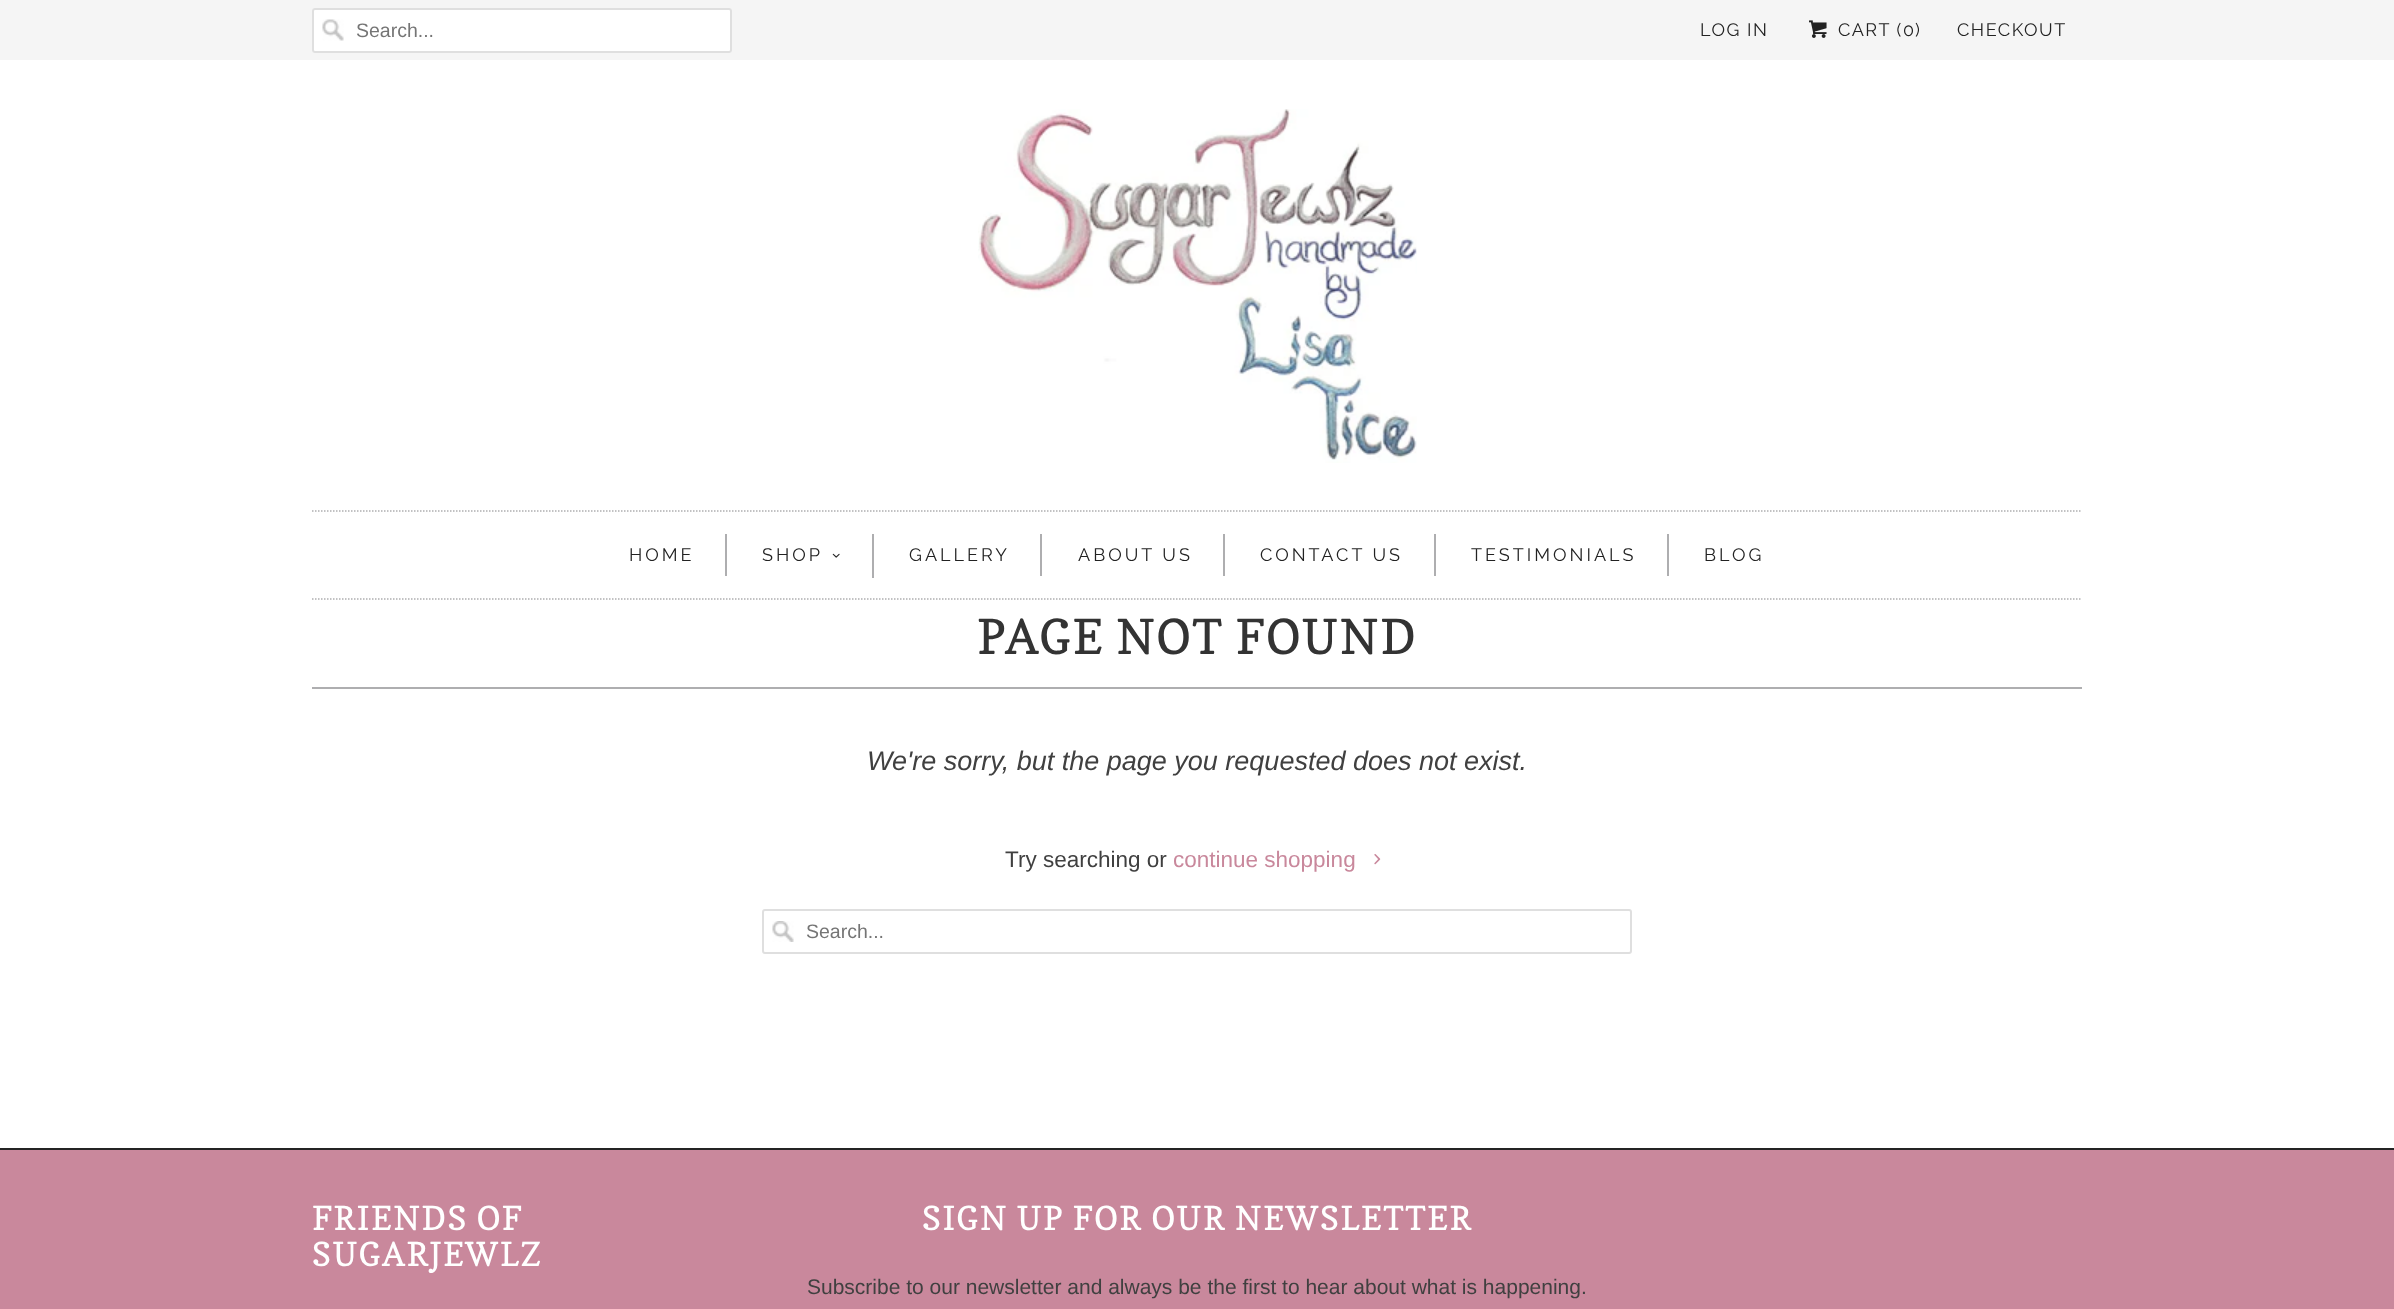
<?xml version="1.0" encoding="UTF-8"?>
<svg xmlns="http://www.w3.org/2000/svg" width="2394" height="1309">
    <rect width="100%" height="100%" fill="#FFFFFF"/>
    <rect x="0" y="0" width="2394" height="60" fill="#F5F5F5"/>
    <rect x="312" y="8" width="420" height="45" rx="3" fill="#FFFFFF"/>
    <image x="322" y="19" width="22" height="22" href="img_01.png"/>
    <rect x="313" y="9" width="418" height="43" rx="2" fill="none" stroke="#DFDFDF" stroke-width="2"/>
    <text x="356" y="37" font-family="Liberation Sans" font-size="19.5" fill="#757575">Search...</text>
    <text x="1700" y="36" font-family="Raleway" font-size="18" letter-spacing="1.5" fill="#222222">LOG IN</text>
    <image x="1809" y="20" width="18" height="18" href="img_02.png"/>
    <text x="1838" y="36" font-family="Raleway" font-size="18" letter-spacing="1.5" fill="#222222">CART (</text>
    <text x="1903" y="36" font-family="Raleway" font-size="18" letter-spacing="1.5" fill="#222222">0</text>
    <text x="1915" y="36" font-family="Raleway" font-size="18" letter-spacing="1.5" fill="#222222">)</text>
    <text x="1957" y="36" font-family="Raleway" font-size="18" letter-spacing="1.5" fill="#222222">CHECKOUT</text>
    <image x="978" y="109" width="439" height="354" href="img_03.png"/>
    <path d="M 312 511 H 2082" fill="none" stroke="#AEAEB0" stroke-width="1.5" stroke-dasharray="1.5 1.5"/>
    <path d="M 312 599 H 2082" fill="none" stroke="#AEAEB0" stroke-width="1.5" stroke-dasharray="1.5 1.5"/>
    <rect x="725" y="534" width="2" height="42" fill="#AEAEB0"/>
    <text x="629" y="561" font-family="Raleway" font-size="18" letter-spacing="3" fill="#222222">HOME</text>
    <rect x="872" y="534" width="2" height="44" fill="#AEAEB0"/>
    <text x="762" y="561" font-family="Raleway" font-size="18" letter-spacing="3" fill="#222222">SHOP</text>
    <image x="832" y="553" width="8" height="5" href="img_04.png"/>
    <rect x="1040" y="534" width="2" height="42" fill="#AEAEB0"/>
    <text x="909" y="561" font-family="Raleway" font-size="18" letter-spacing="3" fill="#222222">GALLERY</text>
    <rect x="1223" y="534" width="2" height="42" fill="#AEAEB0"/>
    <text x="1078" y="561" font-family="Raleway" font-size="18" letter-spacing="3" fill="#222222">ABOUT US</text>
    <rect x="1434" y="534" width="2" height="42" fill="#AEAEB0"/>
    <text x="1260" y="561" font-family="Raleway" font-size="18" letter-spacing="3" fill="#222222">CONTACT US</text>
    <rect x="1667" y="534" width="2" height="42" fill="#AEAEB0"/>
    <text x="1471" y="561" font-family="Raleway" font-size="18" letter-spacing="3" fill="#222222">TESTIMONIALS</text>
    <text x="1704" y="561" font-family="Raleway" font-size="18" letter-spacing="3" fill="#222222">BLOG</text>
    <rect x="312" y="687" width="1770" height="2" fill="#AEAEB0"/>
    <text x="977" y="654" font-family="Copse" font-size="48" letter-spacing="1.5" fill="#333333">PAGE NOT FOUND</text>
    <text x="867" y="770" font-family="Liberation Sans" font-size="27" font-style="italic" fill="#404040">We're sorry, but the page you requested does not exist.</text>
    <text x="1005" y="867" font-family="Liberation Sans" font-size="22.5" fill="#404040">Try searching or</text>
    <text x="1173" y="867" font-family="Liberation Sans" font-size="22.5" fill="#C9889C">continue shopping</text>
    <image x="1374" y="854" width="7" height="11" href="img_05.png"/>
    <image x="772" y="921" width="22" height="21" href="img_06.png"/>
    <rect x="763" y="910" width="868" height="43" rx="2" fill="none" stroke="#DFDFDF" stroke-width="2"/>
    <text x="806" y="938" font-family="Liberation Sans" font-size="19.5" fill="#757575">Search...</text>
    <rect x="0" y="1150" width="2394" height="159" fill="#C9889C"/>
    <rect x="0" y="1148" width="2394" height="2" fill="#242424"/>
    <text font-family="Copse" font-size="33" letter-spacing="1.5" fill="#FFFFFF">
        <tspan x="312" y="1230">FRIENDS OF</tspan>
        <tspan x="312" y="1266">SUGARJEWLZ</tspan>
    </text>
    <text x="922" y="1230" font-family="Copse" font-size="33" letter-spacing="1.5" fill="#FFFFFF">SIGN UP FOR OUR NEWSLETTER</text>
    <text x="807" y="1294" font-family="Liberation Sans" font-size="21" fill="#404040">Subscribe to our newsletter and always be the first to hear about what is happening.</text>
</svg>
